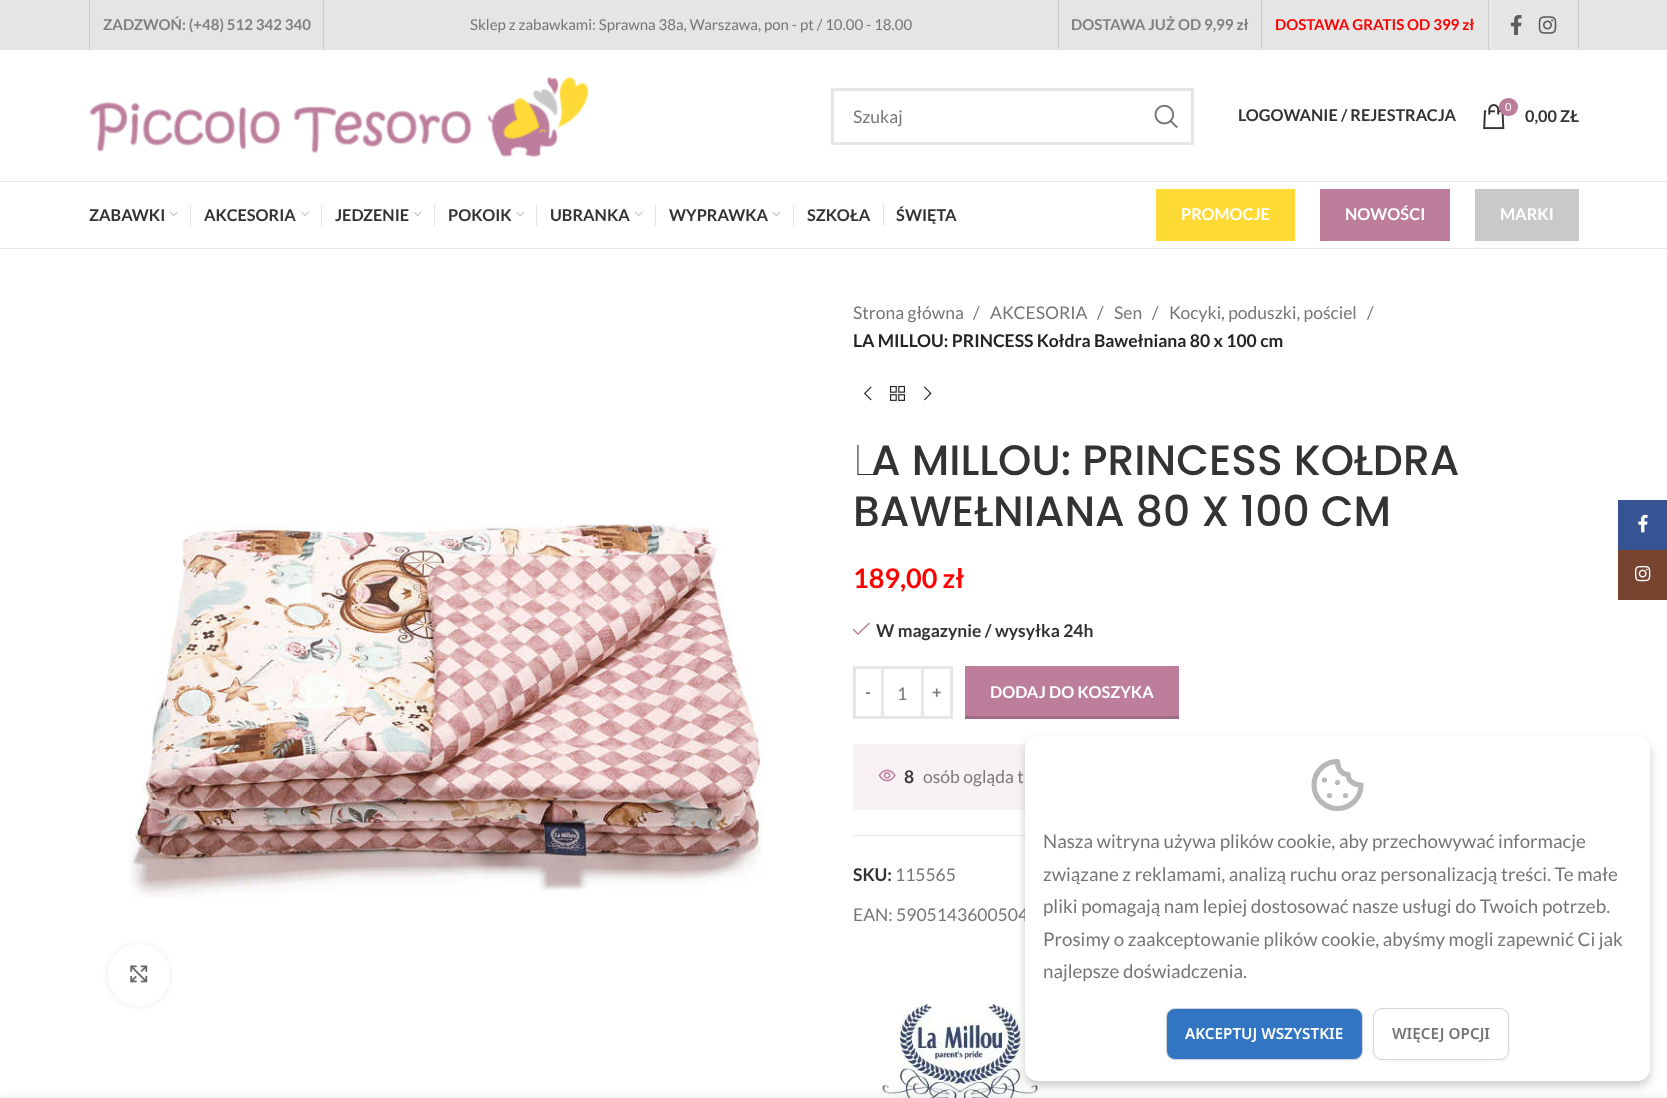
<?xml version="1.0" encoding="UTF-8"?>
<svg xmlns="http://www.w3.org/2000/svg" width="1667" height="1098">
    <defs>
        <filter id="blur1" x="-50%" y="-200%" width="200%" height="500%"><feGaussianBlur stdDeviation="3"/></filter>
        <filter id="blur2" x="-50%" y="-200%" width="200%" height="500%"><feGaussianBlur stdDeviation="5"/></filter>
        <filter id="blur3" x="-50%" y="-200%" width="200%" height="500%"><feGaussianBlur stdDeviation="1"/></filter>
        <filter id="blur4" x="-50%" y="-200%" width="200%" height="500%"><feGaussianBlur stdDeviation="5.5"/></filter>
    </defs>
    <rect width="100%" height="100%" fill="#FFFFFF"/>
    <rect x="853" y="744" width="173" height="66" fill="#F8F2F5"/>
    <rect x="0" y="0" width="1667" height="50" fill="#E5E5E5"/>
    <rect x="89" y="0" width="1" height="50" fill="#CDCDCD"/>
    <text x="103" y="30" font-family="Lato" font-size="15" font-weight="700" fill="#808080">ZADZWOŃ: (+48) 512 342 340</text>
    <rect x="323" y="0" width="1" height="50" fill="#CDCDCD"/>
    <text x="470" y="30" font-family="Lato" font-size="15" fill="#767676">Sklep z zabawkami: Sprawna 38a, Warszawa, pon - pt / 10.00 - 18.00</text>
    <rect x="1058" y="0" width="1" height="50" fill="#CDCDCD"/>
    <text x="1071" y="30" font-family="Lato" font-size="15" font-weight="700" fill="#808080">DOSTAWA JUŻ OD 9,99 zł</text>
    <rect x="1261" y="0" width="1" height="50" fill="#CDCDCD"/>
    <text x="1275" y="30" font-family="Lato" font-size="15" font-weight="700" fill="#FF0000">DOSTAWA GRATIS OD 399 zł</text>
    <rect x="1488" y="0" width="1" height="50" fill="#CDCDCD"/>
    <image x="1510" y="15" width="12" height="20" href="img_01.png"/>
    <image x="1538" y="16" width="19" height="18" href="img_02.png"/>
    <rect x="1578" y="0" width="1" height="50" fill="#CDCDCD"/>
    <rect x="0" y="181" width="1667" height="1" fill="#E8E8E8"/>
    <image x="89" y="76" width="500" height="81" href="img_03.png"/>
    <rect x="832.5" y="89.5" width="360" height="54" fill="none" stroke="#E6E6E6" stroke-width="3"/>
    <text x="853" y="123" font-family="Lato" font-size="17.5" fill="#767676">Szukaj</text>
    <image x="1154" y="104" width="24" height="25" href="img_04.png"/>
    <text x="1238" y="121" font-family="Lato" font-size="16.25" font-weight="700" fill="#333333">LOGOWANIE / REJESTRACJA</text>
    <image x="1483" y="104" width="22" height="26" href="img_05.png"/>
    <rect x="1499" y="98" width="19" height="18" rx="9" fill="#BC7E9B"/>
    <text x="1505" y="111" font-family="Lato" font-size="11" fill="#FFFFFF">0</text>
    <text x="1525" y="122" font-family="Lato" font-size="16.25" font-weight="700" fill="#333333">0,00 ZŁ</text>
    <rect x="0" y="248" width="1667" height="1" fill="#E8E8E8"/>
    <text x="89" y="221" font-family="Lato" font-size="16.25" font-weight="700" fill="#333333">ZABAWKI</text>
    <image x="170" y="212" width="8" height="4" href="img_06.png"/>
    <rect x="190" y="204" width="1" height="22" fill="#E4E4E4"/>
    <text x="204" y="221" font-family="Lato" font-size="16.25" font-weight="700" fill="#333333">AKCESORIA</text>
    <image x="301" y="212" width="8" height="4" href="img_07.png"/>
    <rect x="321" y="204" width="1" height="22" fill="#E4E4E4"/>
    <text x="335" y="221" font-family="Lato" font-size="16.25" font-weight="700" fill="#333333">JEDZENIE</text>
    <image x="413" y="212" width="9" height="4" href="img_08.png"/>
    <rect x="434" y="204" width="1" height="22" fill="#E4E4E4"/>
    <text x="448" y="221" font-family="Lato" font-size="16.25" font-weight="700" fill="#333333">POKOIK</text>
    <image x="516" y="212" width="8" height="4" href="img_07.png"/>
    <rect x="536" y="204" width="1" height="22" fill="#E4E4E4"/>
    <text x="550" y="221" font-family="Lato" font-size="16.25" font-weight="700" fill="#333333">UBRANKA</text>
    <image x="635" y="212" width="8" height="4" href="img_06.png"/>
    <rect x="655" y="204" width="1" height="22" fill="#E4E4E4"/>
    <text x="669" y="221" font-family="Lato" font-size="16.25" font-weight="700" fill="#333333">WYPRAWKA</text>
    <image x="772" y="212" width="8" height="4" href="img_09.png"/>
    <rect x="793" y="204" width="1" height="22" fill="#E4E4E4"/>
    <text x="807" y="221" font-family="Lato" font-size="16.25" font-weight="700" fill="#333333">SZKOŁA</text>
    <rect x="883" y="204" width="1" height="22" fill="#E4E4E4"/>
    <text x="896" y="221" font-family="Lato" font-size="16.25" font-weight="700" fill="#333333">ŚWIĘTA</text>
    <rect x="1156" y="189" width="139" height="52" fill="#FFDA35"/>
    <text x="1181" y="220" font-family="Lato" font-size="16.25" font-weight="700" fill="#FFFFFF">PROMOCJE</text>
    <rect x="1320" y="189" width="130" height="52" fill="#BC7E9B"/>
    <text x="1345" y="220" font-family="Lato" font-size="16.25" font-weight="700" fill="#FFFFFF">NOWOŚCI</text>
    <rect x="1475" y="189" width="104" height="52" fill="#C8C9CB"/>
    <text x="1500" y="220" font-family="Lato" font-size="16.25" font-weight="700" fill="#FFFFFF">MARKI</text>
    <image x="128" y="523" width="635" height="375" href="img_10.png"/>
    <rect x="108" y="944" width="62" height="62" rx="31" fill="#000000" fill-opacity="0.08" filter="url(#blur1)"/>
    <circle cx="139" cy="975" r="31" fill="#FFFFFF"/>
    <image x="130" y="965" width="18" height="18" href="img_11.png"/>
    <text x="853" y="319" font-family="Lato" font-size="17.5" fill="#767676">Strona główna</text>
    <text x="973" y="319" font-family="Lato" font-size="17.5" fill="#767676">/</text>
    <text x="990" y="319" font-family="Lato" font-size="17.5" fill="#767676">AKCESORIA</text>
    <text x="1097" y="319" font-family="Lato" font-size="17.5" fill="#767676">/</text>
    <text x="1114" y="319" font-family="Lato" font-size="17.5" fill="#767676">Sen</text>
    <text x="1152" y="319" font-family="Lato" font-size="17.5" fill="#767676">/</text>
    <text x="1169" y="319" font-family="Lato" font-size="17.5" fill="#767676">Kocyki, poduszki, pościel</text>
    <text x="1367" y="319" font-family="Lato" font-size="17.5" fill="#767676">/</text>
    <text x="853" y="347" font-family="Lato" font-size="17.5" font-weight="700" fill="#242424">LA MILLOU: PRINCESS Kołdra Bawełniana 80 x 100 cm</text>
    <image x="863" y="386" width="9" height="15" href="img_12.png"/>
    <image x="890" y="385" width="15" height="16" href="img_13.png"/>
    <image x="923" y="386" width="9" height="15" href="img_14.png"/>
    <text x="853" y="475" font-family="Noto Sans" font-size="42.5" font-weight="100" fill="#333333">L</text>
    <text x="871" y="475" font-family="Poppins" font-size="42.5" font-weight="500" fill="#333333">A MILLOU: PRINCESS KOŁDRA</text>
    <text x="853" y="526" font-family="Poppins" font-size="42.5" font-weight="500" fill="#333333">BAWEŁNIANA 80 X 100 CM</text>
    <text x="853" y="588" font-family="Lato" font-size="27" font-weight="700" fill="#FF0000">189,00 zł</text>
    <path d="M 870 623.5 L 869 622.5 L 858 633 L 853.5 628.5 L 852.5 629.5 L 858 635 Z" fill="#BC7E9B"/>
    <text x="876" y="637" font-family="Lato" font-size="17.5" font-weight="700" fill="#333333">W magazynie / wysyłka 24h</text>
    <rect x="854.5" y="667.5" width="28" height="50" fill="none" stroke="#E6E6E6" stroke-width="3"/>
    <text x="865" y="698" font-family="Lato" font-size="16.25" font-weight="700" fill="#767676">-</text>
    <rect x="884" y="666" width="37" height="3" fill="#E6E6E6"/>
    <rect x="884" y="716" width="37" height="3" fill="#E6E6E6"/>
    <text x="897" y="700" font-family="Lato" font-size="17.5" fill="#767676">1</text>
    <rect x="922.5" y="667.5" width="29" height="50" fill="none" stroke="#E6E6E6" stroke-width="3"/>
    <text x="932" y="698" font-family="Lato" font-size="16.25" font-weight="700" fill="#767676">+</text>
    <rect x="965" y="666" width="214" height="50" fill="#BC7E9B"/>
    <rect x="965" y="716" width="214" height="3" fill="#A06B84"/>
    <text x="990" y="698" font-family="Lato" font-size="16.25" font-weight="700" fill="#FFFFFF">DODAJ DO KOSZYKA</text>
    <image x="878" y="769" width="18" height="13" href="img_15.png"/>
    <text x="904" y="783" font-family="Lato" font-size="17.5" font-weight="700" fill="#413B3D">8</text>
    <text x="923" y="783" font-family="Lato" font-size="17.5" fill="#7E787B">osób ogląda t</text>
    <rect x="853" y="835" width="172" height="1" fill="#E4E4E4"/>
    <text x="853" y="881" font-family="Lato" font-size="17.5" font-weight="700" fill="#333333">SKU:</text>
    <text x="895" y="881" font-family="Lato" font-size="17.5" fill="#767676">115565</text>
    <text x="853" y="921" font-family="Lato" font-size="17.5" fill="#767676">EAN: 5905143600504</text>
    <image x="881" y="1003" width="159" height="95" href="img_16.png"/>
    <rect x="1618" y="500" width="49" height="50" fill="#365493"/>
    <image x="1638" y="514" width="10" height="19" href="img_17.png"/>
    <rect x="1618" y="550" width="49" height="50" fill="#774430"/>
    <image x="1635" y="565" width="16" height="17" href="img_18.png"/>
    <rect x="1025" y="741" width="625" height="345" rx="13" fill="#000000" fill-opacity="0.2" filter="url(#blur2)"/>
    <rect x="1025" y="736" width="625" height="345" rx="13" fill="#FFFFFF"/>
    <path d="M 1329.5 795.5 H 1329.5 M 1337.5 782.5 H 1337.5 M 1324.5 780 H 1324.5 M 1345.5 795.5 H 1345.5 M 1361 785 C 1361 798 1350.5 808.5 1337.5 808.5 C 1324.5 808.5 1314 798 1314 785 C 1314 772 1324.5 761.5 1337.5 761.5 C 1337.5 769 1342 774.5 1348 774.5 C 1348 780.5 1353.5 785 1361 785 Z" fill="none" stroke="#B8B8B8" stroke-width="5.2" stroke-linecap="round" stroke-linejoin="round"/>
    <text font-family="Lato" font-size="18.75" fill="#767676">
        <tspan x="1043" y="848">Nasza witryna używa plików cookie, aby przechowywać informacje</tspan>
        <tspan x="1043" y="881">związane z reklamami, analizą ruchu oraz personalizacją treści. Te małe</tspan>
        <tspan x="1043" y="913">pliki pomagają nam lepiej dostosować nasze usługi do Twoich potrzeb.</tspan>
        <tspan x="1043" y="946">Prosimy o zaakceptowanie plików cookie, abyśmy mogli zapewnić Ci jak</tspan>
        <tspan x="1043" y="978">najlepsze doświadczenia.</tspan>
    </text>
    <rect x="1166" y="1009" width="197" height="52" rx="9" fill="#000000" fill-opacity="0.05" filter="url(#blur3)"/>
    <rect x="1166.5" y="1008.5" width="196" height="51" rx="8.5" fill="#3276C3" stroke="#D1D5DB"/>
    <text x="1185" y="1039" font-family="Noto Sans" font-size="15.25" font-weight="600" fill="#FFFFFF">AKCEPTUJ WSZYSTKIE</text>
    <rect x="1373" y="1009" width="136" height="52" rx="9" fill="#000000" fill-opacity="0.05" filter="url(#blur3)"/>
    <rect x="1373.5" y="1008.5" width="135" height="51" rx="8.5" fill="#FFFFFF" stroke="#D1D5DB"/>
    <text x="1392" y="1039" font-family="Noto Sans" font-size="15.25" font-weight="600" fill="#767676">WIĘCEJ OPCJI</text>
    <rect x="0" y="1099" width="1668" height="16" fill="#000000" fill-opacity="0.12" filter="url(#blur4)"/>
</svg>
